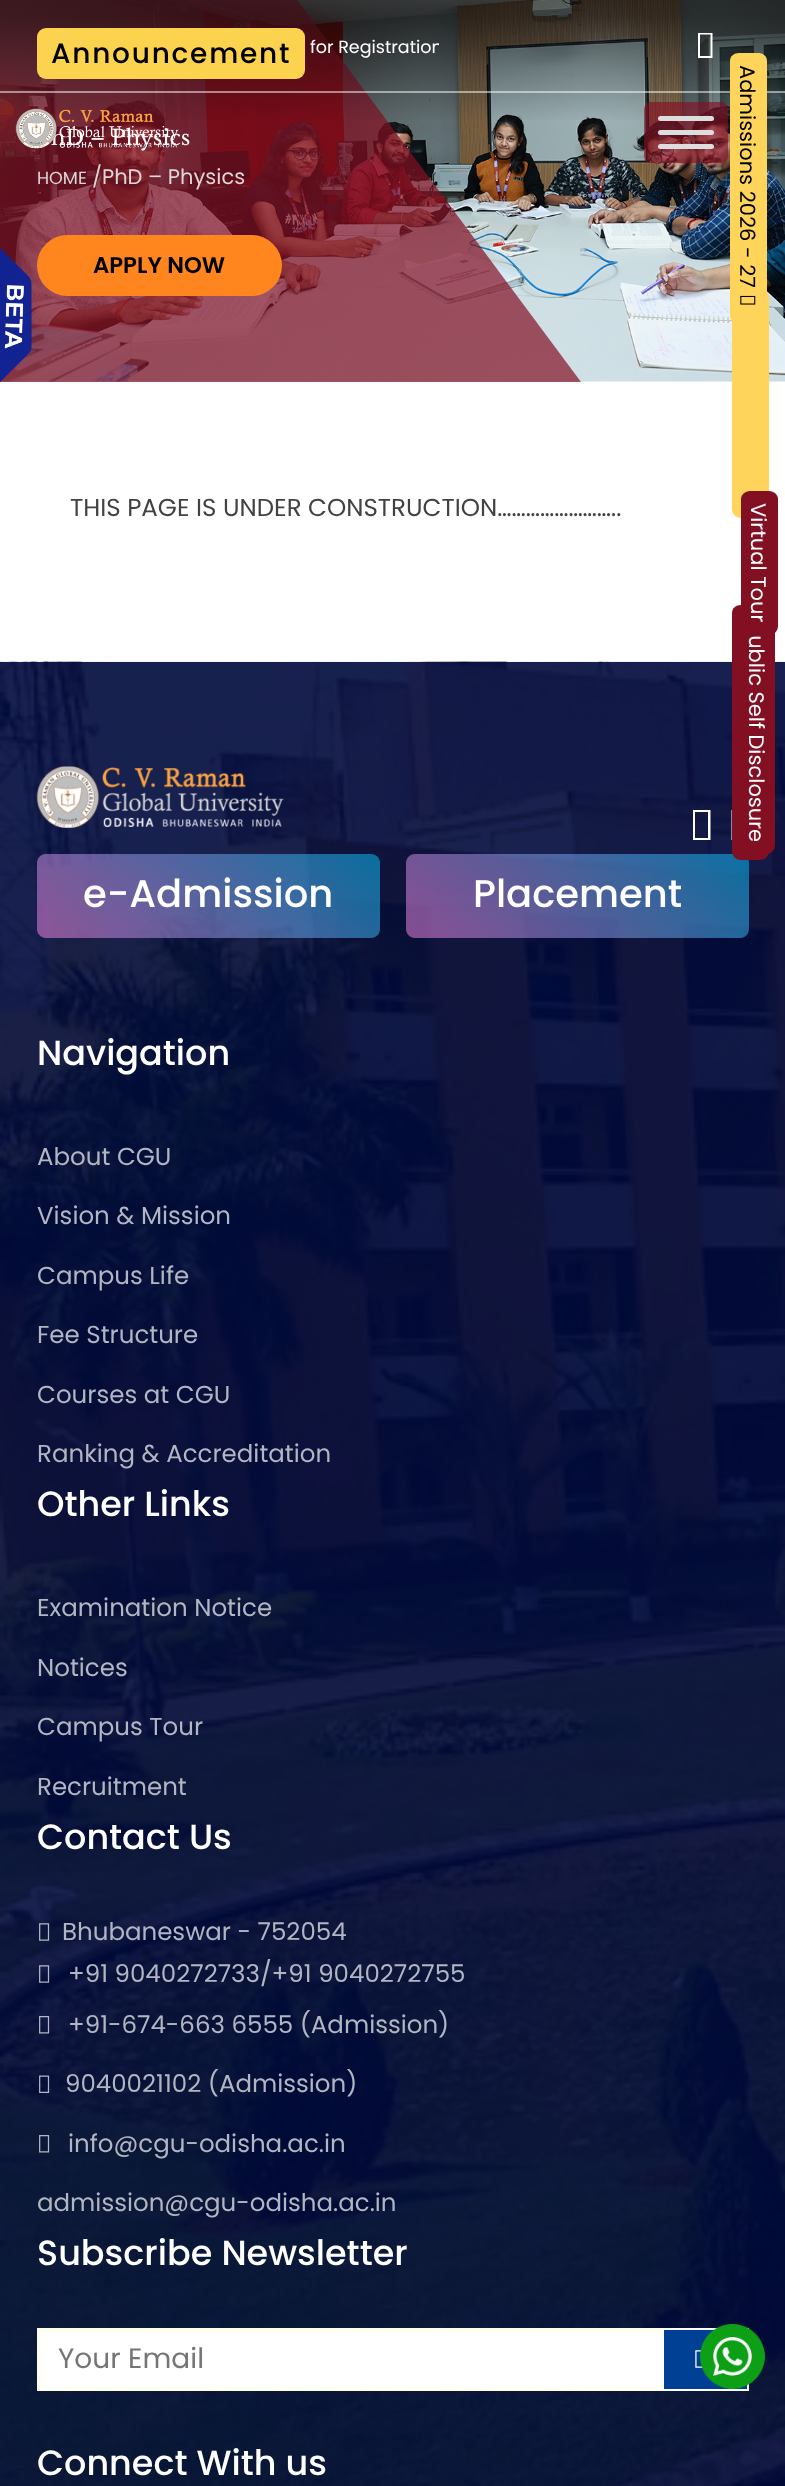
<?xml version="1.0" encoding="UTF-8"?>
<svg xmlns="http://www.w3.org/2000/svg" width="785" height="2486">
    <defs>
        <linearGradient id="g1" gradientUnits="userSpaceOnUse" x1="393" y1="0" x2="393" y2="163"><stop offset="0.1" stop-color="#0D0D0D" stop-opacity="0.54"/><stop offset="0.76" stop-color="#0D0D0D" stop-opacity="0"/><stop offset="0.76" stop-color="#000000" stop-opacity="0"/></linearGradient>
        <clipPath id="clip1"><rect x="37" y="18" width="402" height="43"/></clipPath>
    </defs>
    <rect width="100%" height="100%" fill="#FFFFFF"/>
    <image x="0" y="0" width="785" height="382" href="img_03.png"/>
    <rect x="0" y="0" width="298" height="382" fill="#830F23" fill-opacity="0.7"/>
    <path d="M 298 1 V 382 H 581 Z" fill="#830F23" fill-opacity="0.7"/>
    <rect x="0" y="0" width="785" height="120" fill="url(#g1)"/>
    <rect x="0" y="91" width="785" height="2" fill="#FFFFFF" fill-opacity="0.5"/>
    <rect x="37" y="28" width="268" height="51" rx="9" fill="#FBD34F"/>
    <text x="51" y="63" font-family="Poppins" font-size="28" font-weight="500" letter-spacing="1.75" fill="#000000">Announcement</text>
    <g clip-path="url(#clip1)">
        <text x="310" y="53" font-family="Poppins" font-size="17.5" fill="#FFFFFF">for Registration</text>
    </g>
    <path d="M 698 58 V 33 H 712.5 V 58 Z M 700 56 H 710.5 V 34.5 H 700 Z" fill="#FFFFFF"/>
    <path d="M 769 298 V 509 C 769 514 765 518 760 518 H 741 C 736 518 732 514 732 509 V 298 C 732 293 736 289 741 289 H 760 C 765 289 769 293 769 298 Z" fill="#FFD45A"/>
    <path d="M 767 61 V 315 C 767 320 763 324 758 324 H 739 C 734 324 730 320 730 315 V 61 C 730 56 734 53 739 53 H 758 C 763 53 767 56 767 61 Z" fill="#FFD45A"/>
    <text x="740" y="65" transform="rotate(90 740 65)" font-family="Poppins" font-size="21" fill="#000000">Admissions 2026 - 27</text>
    <image x="740" y="295" width="16" height="10" href="img_01.png"/>
    <image x="0" y="661" width="785" height="1825" href="img_05.png"/>
    <path d="M 693 840 V 810 H 710.5 V 840 Z M 695 838 H 708 V 812 H 695 Z M 731.5 840 V 810 H 749 V 840 Z M 733.5 838 H 746.5 V 812 H 733.5 Z" fill="#FFFFFF"/>
    <path d="M 769 613 V 851 C 769 856 765 860 760 860 H 741 C 736 860 732 856 732 851 V 613 C 732 608 736 605 741 605 H 760 C 765 605 769 608 769 613 Z" fill="#830F23"/>
    <path d="M 775 619 V 845 C 775 850 771 854 766 854 H 747 C 742 854 738 850 738 845 V 619 C 738 614 742 611 747 611 H 766 C 771 611 775 614 775 619 Z" fill="#830F23"/>
    <text x="749" y="623" transform="rotate(90 749 623)" font-family="Poppins" font-size="21" fill="#FFFFFF">Public Self Disclosure</text>
    <path d="M 778 499 V 626 C 778 631 774 635 769 635 H 750 C 745 635 741 631 741 626 V 499 C 741 495 745 491 750 491 H 769 C 774 491 778 495 778 499 Z" fill="#830F23"/>
    <text x="751" y="503" transform="rotate(90 751 503)" font-family="Poppins" font-size="21" fill="#FFFFFF">Virtual Tour</text>
    <text x="51" y="145" font-family="Libre Baskerville" font-size="21" fill="#FFFFFF">hD – Physics</text>
    <image x="15" y="108" width="164" height="41" href="img_02.png"/>
    <rect x="644" y="102" width="84" height="61" rx="7" fill="#830F23" fill-opacity="0.65"/>
    <rect x="658" y="116" width="56" height="5" rx="2.5" fill="#DDDDDD"/>
    <rect x="658" y="130" width="56" height="5" rx="2.5" fill="#DDDDDD"/>
    <rect x="658" y="144" width="56" height="5" rx="2.5" fill="#DDDDDD"/>
    <text x="37" y="184" font-family="Poppins" font-size="17.5" fill="#DDD6D7">HOME</text>
    <text x="92" y="184" font-family="Poppins" font-size="21" fill="#DDD6D7">/PhD – Physics</text>
    <rect x="37" y="235" width="245" height="61" rx="30.5" fill="#FF861E"/>
    <text x="93" y="273" font-family="Poppins" font-size="22.75" font-weight="600" fill="#000000">APPLY NOW</text>
    <image x="0" y="247" width="32" height="136" href="img_04.png"/>
    <text x="70" y="516" font-family="Poppins" font-size="24.5" fill="#424242">THIS PAGE IS UNDER CONSTRUCTION……………………..</text>
    <image x="36" y="766" width="248" height="62" href="img_06.png"/>
    <text x="83" y="907" font-family="Poppins" font-size="38.5" font-weight="500" fill="#FFFFFF">e-Admission</text>
    <text x="473" y="907" font-family="Poppins" font-size="38.5" font-weight="500" fill="#FFFFFF">Placement</text>
    <text x="37" y="1065" font-family="Poppins" font-size="35" font-weight="500" fill="#FFFFFF">Navigation</text>
    <text x="37" y="1165" font-family="Poppins" font-size="24.5" fill="#B2B5C2">About CGU</text>
    <text x="37" y="1224" font-family="Poppins" font-size="24.5" fill="#B2B5C2">Vision &amp; Mission</text>
    <text x="37" y="1284" font-family="Poppins" font-size="24.5" fill="#B2B5C2">Campus Life</text>
    <text x="37" y="1343" font-family="Poppins" font-size="24.5" fill="#B2B5C2">Fee Structure</text>
    <text x="37" y="1403" font-family="Poppins" font-size="24.5" fill="#B2B5C2">Courses at CGU</text>
    <text x="37" y="1462" font-family="Poppins" font-size="24.5" fill="#B2B5C2">Ranking &amp; Accreditation</text>
    <text x="37" y="1516" font-family="Poppins" font-size="35" font-weight="500" fill="#FFFFFF">Other Links</text>
    <text x="37" y="1616" font-family="Poppins" font-size="24.5" fill="#B2B5C2">Examination Notice</text>
    <text x="37" y="1676" font-family="Poppins" font-size="24.5" fill="#B2B5C2">Notices</text>
    <text x="37" y="1735" font-family="Poppins" font-size="24.5" fill="#B2B5C2">Campus Tour</text>
    <text x="37" y="1795" font-family="Poppins" font-size="24.5" fill="#B2B5C2">Recruitment</text>
    <text x="37" y="1849" font-family="Poppins" font-size="35" font-weight="500" fill="#FFFFFF">Contact Us</text>
    <image x="39" y="1923" width="11" height="18" href="img_07.png"/>
    <text x="62" y="1940" font-family="Poppins" font-size="24.5" fill="#B2B5C2">Bhubaneswar - 752054</text>
    <image x="39" y="1965" width="11" height="18" href="img_08.png"/>
    <text x="68" y="1982" font-family="Poppins" font-size="24.5" fill="#B2B5C2">+91 9040272733/+91 9040272755</text>
    <image x="39" y="2016" width="11" height="18" href="img_09.png"/>
    <text x="68" y="2033" font-family="Poppins" font-size="24.5" fill="#B2B5C2">+91-674-663 6555 (Admission)</text>
    <image x="39" y="2075" width="11" height="18" href="img_10.png"/>
    <text x="65" y="2092" font-family="Poppins" font-size="24.5" fill="#B2B5C2">9040021102 (Admission)</text>
    <image x="39" y="2135" width="11" height="18" href="img_11.png"/>
    <text x="68" y="2152" font-family="Poppins" font-size="24.5" fill="#B2B5C2">info@cgu-odisha.ac.in</text>
    <text x="37" y="2211" font-family="Poppins" font-size="24.5" fill="#B2B5C2">admission@cgu-odisha.ac.in</text>
    <text x="37" y="2265" font-family="Poppins" font-size="35" font-weight="500" fill="#FFFFFF">Subscribe Newsletter</text>
    <rect x="41" y="2332" width="621" height="55" fill="#FFFFFF"/>
    <rect x="39" y="2330" width="708" height="59" fill="none" stroke="#FFFFEE" stroke-width="4"/>
    <text x="58" y="2368" font-family="Poppins" font-size="28" fill="#757575">Your Email</text>
    <rect x="663" y="2329" width="85" height="61" fill="#004094" stroke="#FFFFFF" stroke-width="2"/>
    <image x="695" y="2350" width="8" height="18" href="img_12.png"/>
    <text x="37" y="2475" font-family="Poppins" font-size="35" font-weight="500" fill="#FFFFFF">Connect With us</text>
    <image x="700" y="2324" width="65" height="65" href="img_13.png"/>
</svg>
